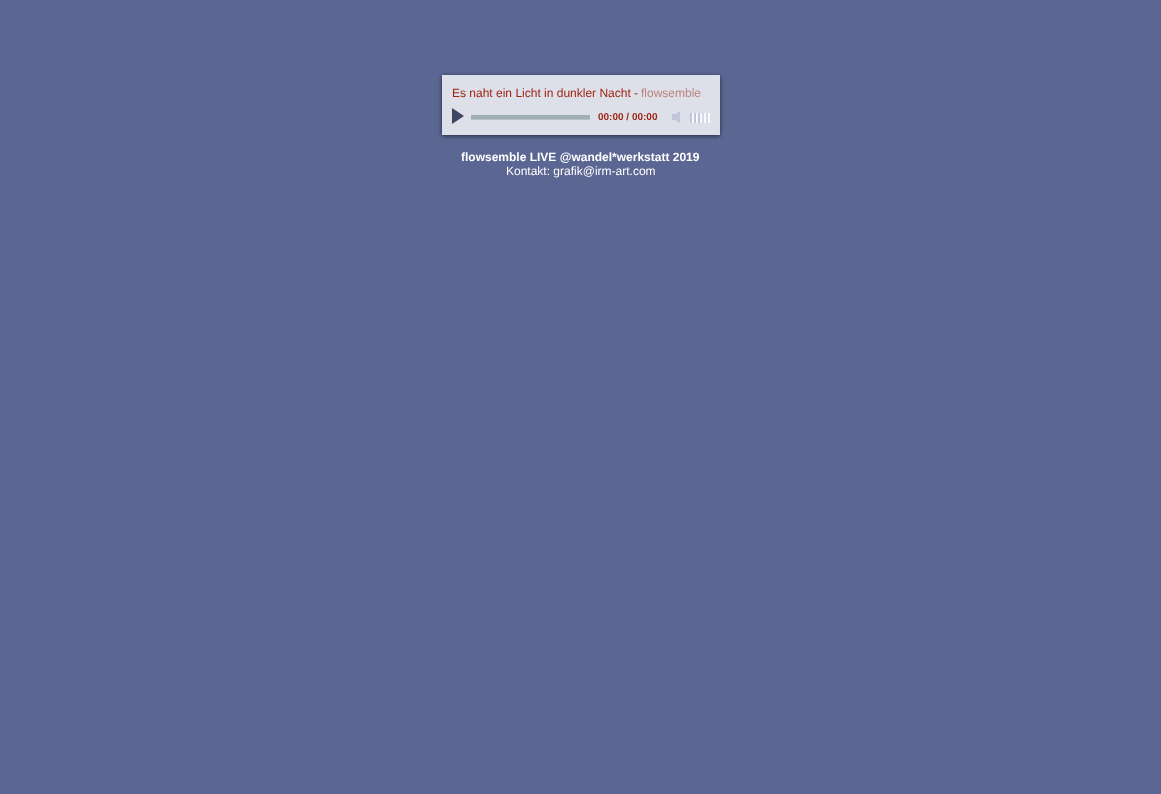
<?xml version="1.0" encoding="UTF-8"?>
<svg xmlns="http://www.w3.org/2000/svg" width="1161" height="794">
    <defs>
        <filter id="blur1" x="-50%" y="-200%" width="200%" height="500%"><feGaussianBlur stdDeviation="2"/></filter>
    </defs>
    <rect width="100%" height="100%" fill="#5B6693"/>
    <rect x="442" y="76" width="278" height="60" fill="#000000" fill-opacity="0.6" filter="url(#blur1)"/>
    <rect x="442" y="75" width="278" height="60" fill="#DEE0E9"/>
    <text x="452" y="97" font-family="Liberation Sans" font-size="12" fill="#9E2313">Es naht ein Licht in dunkler Nacht -</text>
    <text x="641" y="97" font-family="Liberation Sans" font-size="12" fill="#BE827E">flowsemble</text>
    <path d="M 452 124 V 108 L 464 116 Z" fill="#3D4563"/>
    <rect x="471" y="115" width="119" height="4" fill="#A0AFB5"/>
    <rect x="471" y="119" width="119" height="1" fill="#B6C0C7"/>
    <text x="598" y="120" font-family="Liberation Sans" font-size="10" font-weight="700" fill="#9E2313">00:00 / 00:00</text>
    <path d="M 673 117 L 679 123 C 680.5 121.5 680 119 680 117 C 680 115 680.5 112.5 679 111 Z" fill="#C0C5DB"/>
    <rect x="672" y="114" width="4" height="6" fill="#C0C5DB"/>
    <rect x="690" y="113" width="2" height="10" fill="#C0C5DB"/>
    <rect x="692" y="113" width="2" height="10" fill="#F8F9FB"/>
    <rect x="694" y="113" width="2" height="10" fill="#C0C5DB"/>
    <rect x="696" y="113" width="2" height="10" fill="#F8F9FB"/>
    <rect x="698" y="113" width="2" height="10" fill="#C0C5DB"/>
    <rect x="700" y="113" width="2" height="10" fill="#F8F9FB"/>
    <rect x="702" y="113" width="2" height="10" fill="#D5D8E5"/>
    <rect x="704" y="113" width="2" height="10" fill="#F8F9FB"/>
    <rect x="706" y="113" width="2" height="10" fill="#D5D8E5"/>
    <rect x="708" y="113" width="2" height="10" fill="#F8F9FB"/>
    <text x="461" y="161" font-family="Liberation Sans" font-size="12" font-weight="700" fill="#FFFFFF">flowsemble LIVE @wandel*werkstatt 2019</text>
    <text x="506" y="175" font-family="Liberation Sans" font-size="12" fill="#FFFFFF">Kontakt: grafik@irm-art.com</text>
</svg>
